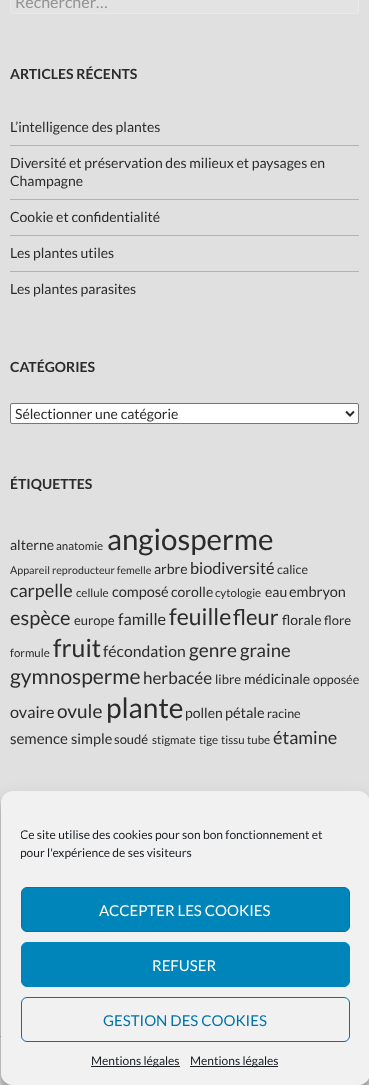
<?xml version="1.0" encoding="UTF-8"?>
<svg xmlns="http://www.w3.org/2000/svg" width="369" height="1085">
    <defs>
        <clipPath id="clip1"><path d="M 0 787 H 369 V 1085 H 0 Z M 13 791 H 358 C 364.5 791 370 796.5 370 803 V 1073 C 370 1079.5 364.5 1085 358 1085 H 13 C 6.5 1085 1 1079.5 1 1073 V 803 C 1 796.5 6.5 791 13 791 Z" clip-rule="evenodd"/></clipPath>
        <filter id="blur1" x="-50%" y="-200%" width="200%" height="500%"><feGaussianBlur stdDeviation="3"/></filter>
        <clipPath id="clip2"><path d="M 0 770 H 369 V 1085 H 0 Z M 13 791 H 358 C 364.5 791 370 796.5 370 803 V 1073 C 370 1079.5 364.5 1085 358 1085 H 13 C 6.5 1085 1 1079.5 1 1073 V 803 C 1 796.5 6.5 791 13 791 Z" clip-rule="evenodd"/></clipPath>
        <filter id="blur2" x="-50%" y="-200%" width="200%" height="500%"><feGaussianBlur stdDeviation="10"/></filter>
        <clipPath id="clip3"><rect x="21" y="826" width="329" height="41"/></clipPath>
    </defs>
    <rect width="100%" height="100%" fill="#E0E0E0"/>
    <rect x="0" y="1036" width="1" height="1" fill="#B3B3B3"/>
    <rect x="10.5" y="-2.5" width="348" height="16" rx="1.5" fill="#E3E3E3" stroke="#E9E9E9"/>
    <text x="15" y="8" font-family="Lato" font-size="16" fill="#939393">Rechercher…</text>
    <text x="10" y="79" font-family="Lato" font-size="14" font-weight="700" fill="#2B2B2B">ARTICLES RÉCENTS</text>
    <text x="10" y="132" font-family="Lato" font-size="14" fill="#2B2B2B">L’intelligence des plantes</text>
    <rect x="10" y="145" width="349" height="1" fill="#B3B3B3"/>
    <text font-family="Lato" font-size="14" fill="#2B2B2B">
        <tspan x="10" y="168">Diversité et préservation des milieux et paysages en</tspan>
        <tspan x="10" y="186">Champagne</tspan>
    </text>
    <rect x="10" y="199" width="349" height="1" fill="#B3B3B3"/>
    <text x="10" y="222" font-family="Lato" font-size="14" fill="#2B2B2B">Cookie et confidentialité</text>
    <rect x="10" y="235" width="349" height="1" fill="#B3B3B3"/>
    <text x="10" y="258" font-family="Lato" font-size="14" fill="#2B2B2B">Les plantes utiles</text>
    <rect x="10" y="271" width="349" height="1" fill="#B3B3B3"/>
    <text x="10" y="294" font-family="Lato" font-size="14" fill="#2B2B2B">Les plantes parasites</text>
    <text x="10" y="372" font-family="Lato" font-size="14" font-weight="700" fill="#2B2B2B">CATÉGORIES</text>
    <rect x="10.5" y="403.5" width="348" height="20" rx="1.5" fill="#FFFFFF" stroke="#767676"/>
    <path d="M 346 411.5 L 350 415.5 L 354 411.5" fill="none" stroke="#2B2B2B" stroke-width="2"/>
    <text x="15" y="419" font-family="Lato" font-size="14" fill="#2B2B2B">Sélectionner une catégorie</text>
    <text x="10" y="489" font-family="Lato" font-size="14" font-weight="700" fill="#2B2B2B">ÉTIQUETTES</text>
    <text x="10" y="550" font-family="Lato" font-size="14" fill="#2B2B2B">alterne</text>
    <text x="56" y="550" font-family="Lato" font-size="11.5" fill="#2B2B2B">anatomie</text>
    <text x="107" y="550" font-family="Lato" font-size="29.5" fill="#2B2B2B">angiosperme</text>
    <text x="10" y="574" font-family="Lato" font-size="10.7" fill="#2B2B2B">Appareil reproducteur femelle</text>
    <text x="154" y="574" font-family="Lato" font-size="14" fill="#2B2B2B">arbre</text>
    <text x="190" y="574" font-family="Lato" font-size="16.25" fill="#2B2B2B">biodiversité</text>
    <text x="277" y="574" font-family="Lato" font-size="12.5" fill="#2B2B2B">calice</text>
    <text x="10" y="597" font-family="Lato" font-size="18" fill="#2B2B2B">carpelle</text>
    <text x="76" y="597" font-family="Lato" font-size="11.5" fill="#2B2B2B">cellule</text>
    <text x="112" y="597" font-family="Lato" font-size="14.5" fill="#2B2B2B">composé</text>
    <text x="171" y="597" font-family="Lato" font-size="14" fill="#2B2B2B">corolle</text>
    <text x="215" y="597" font-family="Lato" font-size="11.5" fill="#2B2B2B">cytologie</text>
    <text x="265" y="597" font-family="Lato" font-size="14" fill="#2B2B2B">eau</text>
    <text x="289" y="597" font-family="Lato" font-size="14.5" fill="#2B2B2B">embryon</text>
    <text x="10" y="625" font-family="Lato" font-size="20" fill="#2B2B2B">espèce</text>
    <text x="74" y="625" font-family="Lato" font-size="13" fill="#2B2B2B">europe</text>
    <text x="118" y="625" font-family="Lato" font-size="16.25" fill="#2B2B2B">famille</text>
    <text x="169" y="625" font-family="Lato" font-size="23" fill="#2B2B2B">feuille</text>
    <text x="233" y="625" font-family="Lato" font-size="22" fill="#2B2B2B">fleur</text>
    <text x="282" y="625" font-family="Lato" font-size="14" fill="#2B2B2B">florale</text>
    <text x="324" y="625" font-family="Lato" font-size="13" fill="#2B2B2B">flore</text>
    <text x="10" y="657" font-family="Lato" font-size="11.5" fill="#2B2B2B">formule</text>
    <text x="53" y="657" font-family="Lato" font-size="25" fill="#2B2B2B">fruit</text>
    <text x="103" y="657" font-family="Lato" font-size="15.75" fill="#2B2B2B">fécondation</text>
    <text x="189" y="657" font-family="Lato" font-size="19" fill="#2B2B2B">genre</text>
    <text x="240" y="657" font-family="Lato" font-size="18.5" fill="#2B2B2B">graine</text>
    <text x="10" y="684" font-family="Lato" font-size="21" fill="#2B2B2B">gymnosperme</text>
    <text x="143" y="684" font-family="Lato" font-size="17" fill="#2B2B2B">herbacée</text>
    <text x="215" y="684" font-family="Lato" font-size="13" fill="#2B2B2B">libre</text>
    <text x="244" y="684" font-family="Lato" font-size="14" fill="#2B2B2B">médicinale</text>
    <text x="313" y="684" font-family="Lato" font-size="12.5" fill="#2B2B2B">opposée</text>
    <text x="10" y="718" font-family="Lato" font-size="16.25" fill="#2B2B2B">ovaire</text>
    <text x="57" y="718" font-family="Lato" font-size="19" fill="#2B2B2B">ovule</text>
    <text x="106" y="718" font-family="Lato" font-size="28" fill="#2B2B2B">plante</text>
    <text x="185" y="718" font-family="Lato" font-size="14" fill="#2B2B2B">pollen</text>
    <text x="225" y="718" font-family="Lato" font-size="14.5" fill="#2B2B2B">pétale</text>
    <text x="267" y="718" font-family="Lato" font-size="12.5" fill="#2B2B2B">racine</text>
    <text x="10" y="744" font-family="Lato" font-size="15" fill="#2B2B2B">semence</text>
    <text x="71" y="744" font-family="Lato" font-size="14.5" fill="#2B2B2B">simple</text>
    <text x="114" y="744" font-family="Lato" font-size="13" fill="#2B2B2B">soudé</text>
    <text x="152" y="744" font-family="Lato" font-size="11.5" fill="#2B2B2B">stigmate</text>
    <text x="199" y="744" font-family="Lato" font-size="11.5" fill="#2B2B2B">tige</text>
    <text x="221" y="744" font-family="Lato" font-size="11.5" fill="#2B2B2B">tissu</text>
    <text x="247" y="744" font-family="Lato" font-size="11.5" fill="#2B2B2B">tube</text>
    <text x="273" y="744" font-family="Lato" font-size="18" fill="#2B2B2B">étamine</text>
    <g clip-path="url(#clip1)">
        <rect x="1" y="797" width="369" height="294" rx="12" fill="#000000" fill-opacity="0.23" filter="url(#blur1)"/>
    </g>
    <g clip-path="url(#clip2)">
        <rect x="1" y="801" width="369" height="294" rx="12" fill="#000000" fill-opacity="0.19" filter="url(#blur2)"/>
    </g>
    <rect x="1" y="791" width="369" height="294" rx="12" fill="#F1F1F1"/>
    <g clip-path="url(#clip3)">
        <text font-family="Lato" font-size="12" fill="#191E23">
            <tspan x="20" y="839">Ce site utilise des cookies pour son bon fonctionnement et</tspan>
            <tspan x="20" y="857">pour l'expérience de ses visiteurs</tspan>
        </text>
    </g>
    <rect x="21.5" y="887.5" width="328" height="44" rx="5.5" fill="#0085BA" stroke="#0073AA"/>
    <text x="99" y="916" font-family="Lato" font-size="15" fill="#FFFFFF">ACCEPTER LES COOKIES</text>
    <rect x="21.5" y="942.5" width="328" height="44" rx="5.5" fill="#0085BA" stroke="#0085BA"/>
    <text x="152" y="971" font-family="Lato" font-size="15" fill="#FFFFFF">REFUSER</text>
    <rect x="21.5" y="997.5" width="328" height="44" rx="5.5" fill="none" stroke="#0073AA"/>
    <text x="103" y="1026" font-family="Lato" font-size="15" fill="#0073AA">GESTION DES COOKIES</text>
    <rect x="91" y="1066" width="89" height="1" fill="#191E23"/>
    <text x="91" y="1065" font-family="Lato" font-size="12" fill="#191E23">Mentions légales</text>
    <rect x="190" y="1066" width="88" height="1" fill="#191E23"/>
    <text x="190" y="1065" font-family="Lato" font-size="12" fill="#191E23">Mentions légales</text>
</svg>
